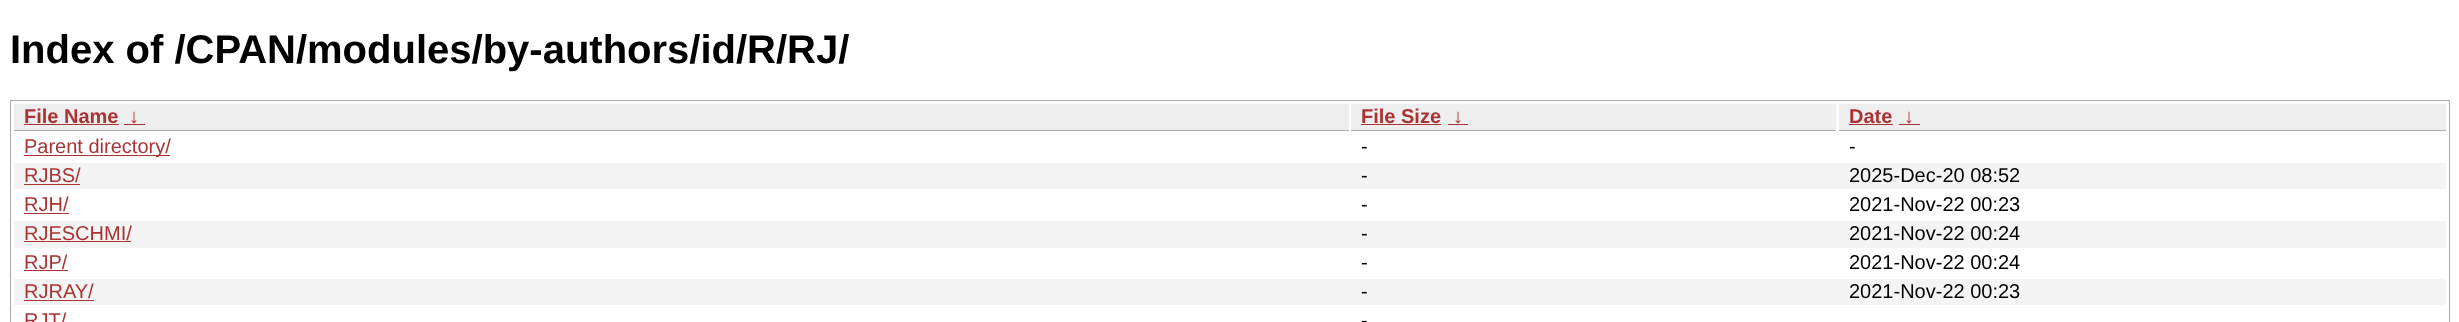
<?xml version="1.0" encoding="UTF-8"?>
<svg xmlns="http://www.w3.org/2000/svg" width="2459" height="322">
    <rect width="100%" height="100%" fill="#FFFFFF"/>
    <text x="10" y="63" font-family="Liberation Sans" font-size="40" font-weight="700" fill="#000000">Index of /CPAN/modules/by-authors/id/R/RJ/</text>
    <rect x="10.5" y="100.5" width="2439" height="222" fill="none" stroke="#AAAAAA"/>
    <rect x="14" y="104" width="1335" height="26" fill="#EEEEEE"/>
    <rect x="14" y="130" width="1335" height="1" fill="#AAAAAA"/>
    <text x="24" y="123" font-family="Liberation Sans" font-size="20" font-weight="700" fill="#AA3333">File Name</text>
    <rect x="24" y="124" width="95" height="1" fill="#AA3333"/>
    <text x="129" y="123" font-family="Liberation Sans" font-size="20" font-weight="700" fill="#AA3333">↓</text>
    <rect x="124" y="124" width="21" height="1" fill="#AA3333"/>
    <rect x="1351" y="104" width="485" height="26" fill="#EEEEEE"/>
    <rect x="1351" y="130" width="485" height="1" fill="#AAAAAA"/>
    <text x="1361" y="123" font-family="Liberation Sans" font-size="20" font-weight="700" fill="#AA3333">File Size</text>
    <rect x="1361" y="124" width="80" height="1" fill="#AA3333"/>
    <text x="1453" y="123" font-family="Liberation Sans" font-size="20" font-weight="700" fill="#AA3333">↓</text>
    <rect x="1448" y="124" width="20" height="1" fill="#AA3333"/>
    <rect x="1839" y="104" width="607" height="26" fill="#EEEEEE"/>
    <rect x="1839" y="130" width="607" height="1" fill="#AAAAAA"/>
    <text x="1849" y="123" font-family="Liberation Sans" font-size="20" font-weight="700" fill="#AA3333">Date</text>
    <rect x="1849" y="124" width="44" height="1" fill="#AA3333"/>
    <text x="1904" y="123" font-family="Liberation Sans" font-size="20" font-weight="700" fill="#AA3333">↓</text>
    <rect x="1899" y="124" width="21" height="1" fill="#AA3333"/>
    <rect x="24" y="155" width="146" height="1" fill="#AA3333"/>
    <text x="24" y="153" font-family="Liberation Sans" font-size="20" fill="#AA3333">Parent directory/</text>
    <text x="1361" y="153" font-family="Liberation Sans" font-size="20" fill="#000000">-</text>
    <text x="1849" y="153" font-family="Liberation Sans" font-size="20" fill="#000000">-</text>
    <rect x="14" y="163" width="2432" height="26" fill="#F4F4F4"/>
    <text x="24" y="182" font-family="Liberation Sans" font-size="20" fill="#AA3333">RJBS/</text>
    <rect x="24" y="184" width="56" height="1" fill="#AA3333"/>
    <text x="1361" y="182" font-family="Liberation Sans" font-size="20" fill="#000000">-</text>
    <text x="1849" y="182" font-family="Liberation Sans" font-size="20" fill="#000000">2025-Dec-20 08:52</text>
    <text x="24" y="211" font-family="Liberation Sans" font-size="20" fill="#AA3333">RJH/</text>
    <rect x="24" y="213" width="45" height="1" fill="#AA3333"/>
    <text x="1361" y="211" font-family="Liberation Sans" font-size="20" fill="#000000">-</text>
    <text x="1849" y="211" font-family="Liberation Sans" font-size="20" fill="#000000">2021-Nov-22 00:23</text>
    <rect x="14" y="221" width="2432" height="27" fill="#F4F4F4"/>
    <text x="24" y="240" font-family="Liberation Sans" font-size="20" fill="#AA3333">RJESCHMI/</text>
    <rect x="24" y="241" width="107" height="1" fill="#AA3333"/>
    <text x="1361" y="240" font-family="Liberation Sans" font-size="20" fill="#000000">-</text>
    <text x="1849" y="240" font-family="Liberation Sans" font-size="20" fill="#000000">2021-Nov-22 00:24</text>
    <text x="24" y="269" font-family="Liberation Sans" font-size="20" fill="#AA3333">RJP/</text>
    <rect x="24" y="270" width="44" height="1" fill="#AA3333"/>
    <text x="1361" y="269" font-family="Liberation Sans" font-size="20" fill="#000000">-</text>
    <text x="1849" y="269" font-family="Liberation Sans" font-size="20" fill="#000000">2021-Nov-22 00:24</text>
    <rect x="14" y="279" width="2432" height="26" fill="#F4F4F4"/>
    <text x="24" y="298" font-family="Liberation Sans" font-size="20" fill="#AA3333">RJRAY/</text>
    <rect x="24" y="300" width="70" height="1" fill="#AA3333"/>
    <text x="1361" y="298" font-family="Liberation Sans" font-size="20" fill="#000000">-</text>
    <text x="1849" y="298" font-family="Liberation Sans" font-size="20" fill="#000000">2021-Nov-22 00:23</text>
    <text x="24" y="327" font-family="Liberation Sans" font-size="20" fill="#AA3333">RJT/</text>
    <text x="1361" y="327" font-family="Liberation Sans" font-size="20" fill="#000000">-</text>
</svg>
